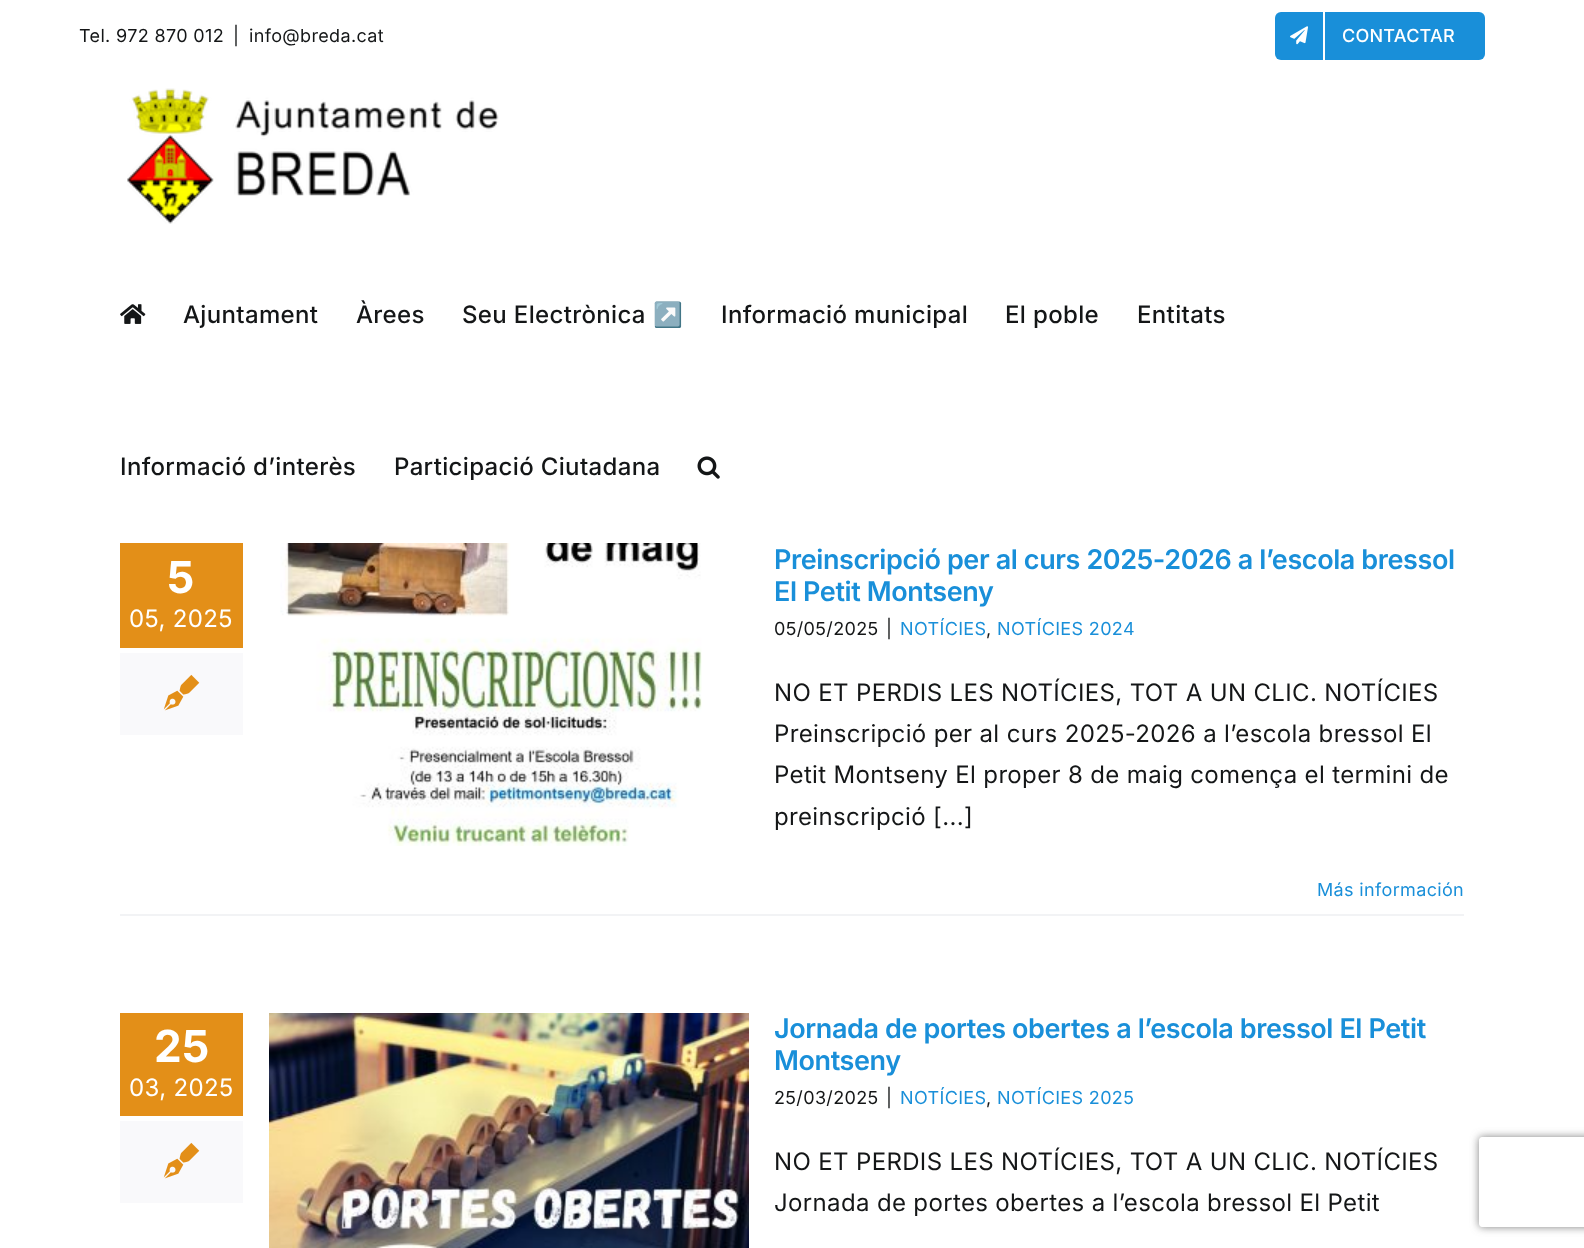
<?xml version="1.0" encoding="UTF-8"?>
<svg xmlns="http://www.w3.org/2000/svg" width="1584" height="1248">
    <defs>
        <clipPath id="clip1"><path d="M 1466 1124 H 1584 V 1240 H 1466 Z M 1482 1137 H 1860 C 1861.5 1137 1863 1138.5 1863 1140 V 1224 C 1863 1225.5 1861.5 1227 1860 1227 H 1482 C 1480.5 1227 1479 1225.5 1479 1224 V 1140 C 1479 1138.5 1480.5 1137 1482 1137 Z" clip-rule="evenodd"/></clipPath>
        <filter id="blur1" x="-50%" y="-200%" width="200%" height="500%"><feGaussianBlur stdDeviation="4"/></filter>
    </defs>
    <rect width="100%" height="100%" fill="#FFFFFF"/>
    <text x="79" y="42" font-family="Inter" font-size="18" letter-spacing="0.35" fill="#141617">Tel. 972 870 012</text>
    <text x="233" y="42" font-family="Inter" font-size="18" letter-spacing="0.35" fill="#141617">|</text>
    <text x="249" y="42" font-family="Inter" font-size="18" letter-spacing="0.35" fill="#141617">info@breda.cat</text>
    <rect x="1275" y="12" width="210" height="48" rx="6" fill="#198FD9"/>
    <rect x="1323" y="12" width="2" height="48" fill="#FFFFFF"/>
    <image x="1290" y="26" width="18" height="19" href="img_01.png"/>
    <text x="1342" y="42" font-family="Inter" font-size="18" font-weight="500" letter-spacing="0.25" fill="#FFFFFF">CONTACTAR</text>
    <image x="127" y="88" width="372" height="136" href="img_02.png"/>
    <image x="120" y="304" width="26" height="20" href="img_03.png"/>
    <text x="183" y="323" font-family="Inter" font-size="24" font-weight="500" letter-spacing="0.35" fill="#141617">Ajuntament</text>
    <text x="356" y="323" font-family="Inter" font-size="24" font-weight="500" letter-spacing="0.35" fill="#141617">Àrees</text>
    <text x="462" y="323" font-family="Inter" font-size="24" font-weight="500" letter-spacing="0.35" fill="#141617">Seu Electrònica</text>
    <text x="653" y="323" font-family="Noto Color Emoji" font-size="24" letter-spacing="0.35" fill="#141617">↗️</text>
    <text x="721" y="323" font-family="Inter" font-size="24" font-weight="500" letter-spacing="0.35" fill="#141617">Informació municipal</text>
    <text x="1005" y="323" font-family="Inter" font-size="24" font-weight="500" letter-spacing="0.35" fill="#141617">El poble</text>
    <text x="1137" y="323" font-family="Inter" font-size="24" font-weight="500" letter-spacing="0.35" fill="#141617">Entitats</text>
    <text x="120" y="475" font-family="Inter" font-size="24" font-weight="500" letter-spacing="0.35" fill="#141617">Informació d’interès</text>
    <text x="394" y="475" font-family="Inter" font-size="24" font-weight="500" letter-spacing="0.35" fill="#141617">Participació Ciutadana</text>
    <image x="697" y="456" width="23" height="23" href="img_04.png"/>
    <rect x="120" y="543" width="123" height="105" fill="#E38F18"/>
    <text x="167" y="593" font-family="Inter" font-size="44" font-weight="700" letter-spacing="0.35" fill="#FFFFFF">5</text>
    <text x="129" y="627" font-family="Inter" font-size="24" letter-spacing="0.35" fill="#FFFFFF">05, 2025</text>
    <rect x="120" y="653" width="123" height="82" fill="#F9F9FB"/>
    <image x="163" y="674" width="37" height="37" href="img_05.png"/>
    <image x="280" y="543" width="422" height="303" href="img_06.png"/>
    <text font-family="Inter" font-size="27" font-weight="600" letter-spacing="-0.4" fill="#198FD9">
        <tspan x="774" y="569">Preinscripció per al curs 2025-2026 a l’escola bressol</tspan>
        <tspan x="774" y="601">El Petit Montseny</tspan>
    </text>
    <text x="774" y="635" font-family="Inter" font-size="18" letter-spacing="0.35" fill="#141617">05/05/2025</text>
    <text x="886" y="635" font-family="Inter" font-size="18" letter-spacing="0.35" fill="#141617">|</text>
    <text x="900" y="635" font-family="Inter" font-size="18" letter-spacing="0.35" fill="#198FD9">NOTÍCIES</text>
    <text x="986" y="635" font-family="Inter" font-size="18" letter-spacing="0.35" fill="#141617">,</text>
    <text x="997" y="635" font-family="Inter" font-size="18" letter-spacing="0.35" fill="#198FD9">NOTÍCIES 2024</text>
    <text font-family="Inter" font-size="24" letter-spacing="0.35" fill="#141617">
        <tspan x="774" y="701">NO ET PERDIS LES NOTÍCIES, TOT A UN CLIC. NOTÍCIES</tspan>
        <tspan x="774" y="742">Preinscripció per al curs 2025-2026 a l’escola bressol El</tspan>
        <tspan x="774" y="783">Petit Montseny El proper 8 de maig comença el termini de</tspan>
        <tspan x="774" y="825">preinscripció [...]</tspan>
    </text>
    <rect x="120" y="914" width="1344" height="2" fill="#F2F3F5"/>
    <text x="1317" y="896" font-family="Inter" font-size="18" letter-spacing="0.35" fill="#198FD9">Más información</text>
    <rect x="120" y="1013" width="123" height="103" fill="#E38F18"/>
    <text x="154" y="1062" font-family="Inter" font-size="44" font-weight="700" letter-spacing="0.35" fill="#FFFFFF">25</text>
    <text x="129" y="1096" font-family="Inter" font-size="24" letter-spacing="0.35" fill="#FFFFFF">03, 2025</text>
    <rect x="120" y="1121" width="123" height="82" fill="#F9F9FB"/>
    <image x="163" y="1142" width="37" height="37" href="img_05.png"/>
    <image x="269" y="1013" width="480" height="235" href="img_07.png"/>
    <text font-family="Inter" font-size="27" font-weight="600" letter-spacing="-0.4" fill="#198FD9">
        <tspan x="774" y="1038">Jornada de portes obertes a l’escola bressol El Petit</tspan>
        <tspan x="774" y="1070">Montseny</tspan>
    </text>
    <text x="774" y="1104" font-family="Inter" font-size="18" letter-spacing="0.35" fill="#141617">25/03/2025</text>
    <text x="886" y="1104" font-family="Inter" font-size="18" letter-spacing="0.35" fill="#141617">|</text>
    <text x="900" y="1104" font-family="Inter" font-size="18" letter-spacing="0.35" fill="#198FD9">NOTÍCIES</text>
    <text x="986" y="1104" font-family="Inter" font-size="18" letter-spacing="0.35" fill="#141617">,</text>
    <text x="997" y="1104" font-family="Inter" font-size="18" letter-spacing="0.35" fill="#198FD9">NOTÍCIES 2025</text>
    <text font-family="Inter" font-size="24" letter-spacing="0.35" fill="#141617">
        <tspan x="774" y="1170">NO ET PERDIS LES NOTÍCIES, TOT A UN CLIC. NOTÍCIES</tspan>
        <tspan x="774" y="1211">Jornada de portes obertes a l’escola bressol El Petit</tspan>
    </text>
    <g clip-path="url(#clip1)">
        <rect x="1479" y="1137" width="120" height="90" rx="3" fill="#808080" filter="url(#blur1)"/>
    </g>
</svg>
